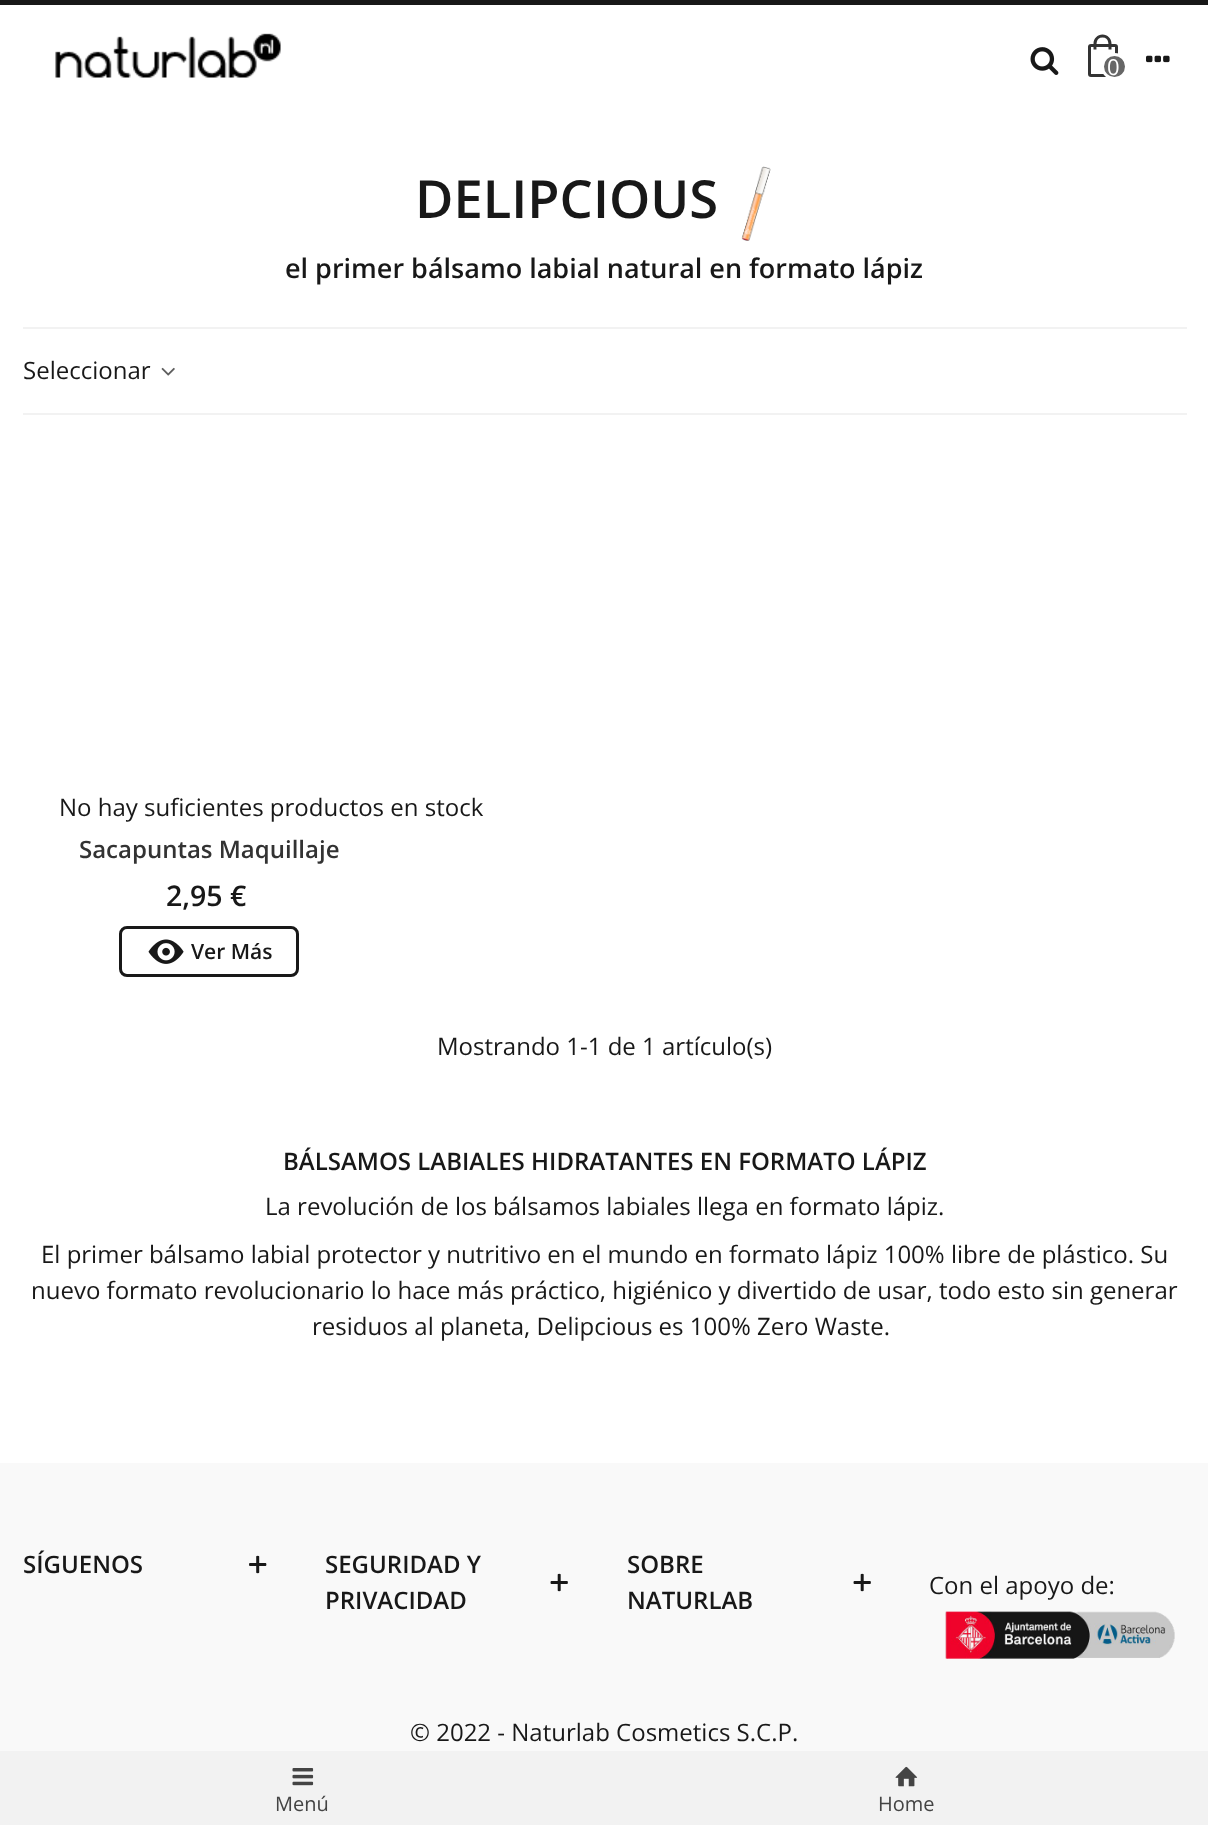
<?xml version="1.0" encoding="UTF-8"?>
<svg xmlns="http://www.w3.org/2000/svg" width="1208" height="1825">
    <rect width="100%" height="100%" fill="#FFFFFF"/>
    <rect x="0" y="0" width="1208" height="5" fill="#181818"/>
    <image x="55" y="33" width="226" height="45" href="img_01.png"/>
    <image x="1030" y="47" width="29" height="28" href="img_02.png"/>
    <rect x="1089.5" y="45.5" width="27" height="30" rx="1.5" fill="none" stroke="#333333" stroke-width="3"/>
    <path d="M 1102.5 34.5 C 1107.5 34.5 1111.5 38.5 1111.5 43.5 V 49.5 H 1093.5 V 43.5 C 1093.5 38.5 1097.5 34.5 1102.5 34.5 Z M 1102.5 37.5 C 1109.5 37.5 1108.5 45 1108.5 49.5 H 1096.5 C 1096.5 45 1095.5 37.5 1102.5 37.5 Z" fill="#333333" fill-rule="evenodd"/>
    <circle cx="1114.5" cy="66.5" r="12" fill="#666666" stroke="#FFFFFF" stroke-width="3"/>
    <text x="1107" y="75" font-family="Open Sans" font-size="22" fill="#FFFFFF">0</text>
    <image x="1146" y="55" width="24" height="8" href="img_03.png"/>
    <text x="415" y="218" font-family="Open Sans" font-size="52.5" font-weight="600" fill="#181818">DELIPCIOUS</text>
    <image x="741" y="166" width="30" height="75" href="img_04.png"/>
    <text x="285" y="278" font-family="Open Sans" font-size="27" font-weight="600" fill="#181818">el primer bálsamo labial natural en formato lápiz</text>
    <rect x="23" y="327" width="1164" height="2" fill="#F2F2F2"/>
    <rect x="23" y="413" width="1164" height="2" fill="#F2F2F2"/>
    <text x="23" y="379" font-family="Open Sans" font-size="24" fill="#181818">Seleccionar</text>
    <image x="161" y="367" width="14" height="9" href="img_05.png"/>
    <text x="59" y="816" font-family="Open Sans" font-size="24" fill="#181818">No hay suficientes productos en stock</text>
    <text x="79" y="858" font-family="Open Sans" font-size="24" font-weight="600" fill="#333333">Sacapuntas Maquillaje</text>
    <text x="166" y="906" font-family="Open Sans" font-size="28.5" font-weight="600" fill="#181818">2,95 €</text>
    <rect x="120.5" y="927.5" width="177" height="48" rx="6.5" fill="none" stroke="#181818" stroke-width="3"/>
    <image x="148" y="939" width="36" height="25" href="img_06.png"/>
    <text x="191" y="959" font-family="Open Sans" font-size="21" font-weight="600" fill="#181818">Ver Más</text>
    <text x="437" y="1055" font-family="Open Sans" font-size="24" fill="#181818">Mostrando 1-1 de 1 artículo(s)</text>
    <text x="283" y="1170" font-family="Open Sans" font-size="24" font-weight="600" fill="#181818">BÁLSAMOS LABIALES HIDRATANTES EN FORMATO LÁPIZ</text>
    <text x="265" y="1215" font-family="Open Sans" font-size="24" fill="#181818">La revolución de los bálsamos labiales llega en formato lápiz.</text>
    <text x="41" y="1263" font-family="Open Sans" font-size="24" fill="#181818">El primer bálsamo labial protector y nutritivo en el mundo en formato lápiz 100% libre de plástico. Su</text>
    <text x="31" y="1299" font-family="Open Sans" font-size="24" fill="#181818">nuevo formato revolucionario lo hace más práctico, higiénico y divertido de usar, todo esto sin generar</text>
    <text x="312" y="1335" font-family="Open Sans" font-size="24" fill="#181818">residuos al planeta, Delipcious es 100% Zero Waste.</text>
    <rect x="0" y="1463" width="1208" height="288" fill="#F9F9F9"/>
    <text x="23" y="1573" font-family="Open Sans" font-size="24" font-weight="600" fill="#181818">SÍGUENOS</text>
    <image x="249" y="1555" width="18" height="19" href="img_07.png"/>
    <text font-family="Open Sans" font-size="24" font-weight="600" fill="#181818">
        <tspan x="325" y="1573">SEGURIDAD Y</tspan>
        <tspan x="325" y="1609">PRIVACIDAD</tspan>
    </text>
    <image x="550" y="1573" width="18" height="19" href="img_08.png"/>
    <text font-family="Open Sans" font-size="24" font-weight="600" fill="#181818">
        <tspan x="627" y="1573">SOBRE</tspan>
        <tspan x="627" y="1609">NATURLAB</tspan>
    </text>
    <image x="853" y="1573" width="18" height="19" href="img_08.png"/>
    <text x="929" y="1594" font-family="Open Sans" font-size="24" fill="#181818">Con el apoyo de:</text>
    <image x="945" y="1611" width="230" height="48" href="img_09.png"/>
    <text x="410" y="1741" font-family="Open Sans" font-size="24" fill="#181818">© 2022 - Naturlab Cosmetics S.C.P.</text>
    <rect x="0" y="1751" width="1208" height="74" fill="#F2F2F2"/>
    <image x="292" y="1768" width="22" height="18" href="img_10.png"/>
    <text x="275" y="1811" font-family="Open Sans" font-size="20" fill="#444444">Menú</text>
    <image x="895" y="1766" width="23" height="21" href="img_11.png"/>
    <text x="878" y="1811" font-family="Open Sans" font-size="20" fill="#444444">Home</text>
</svg>
